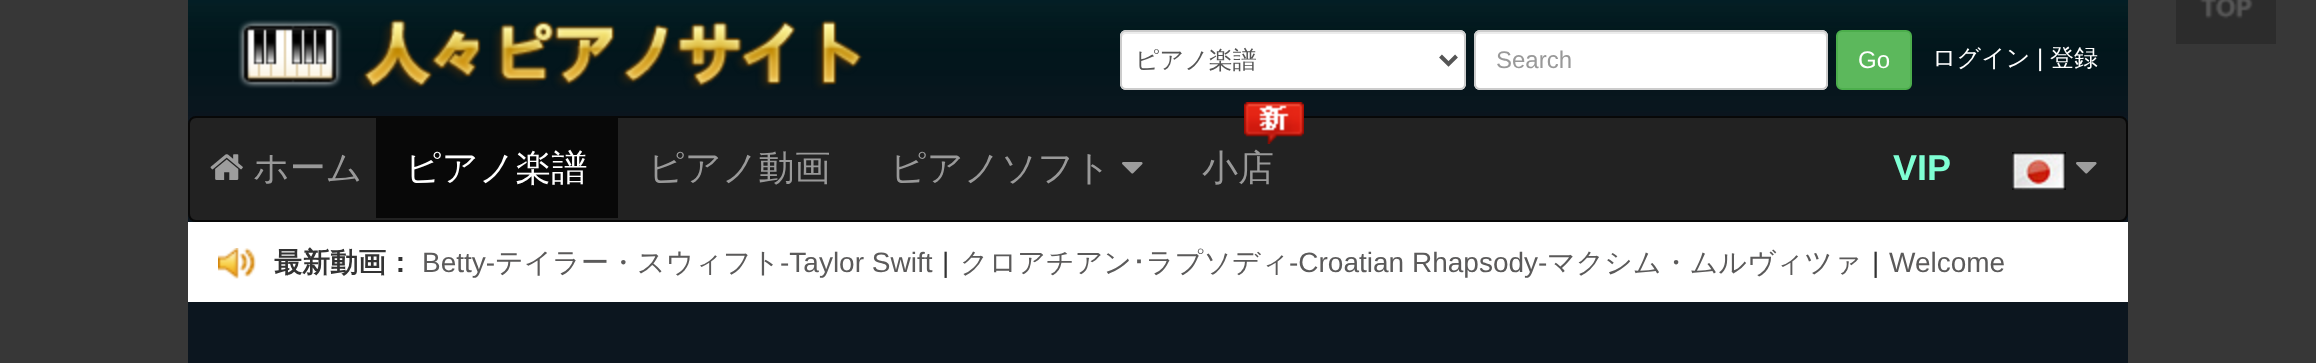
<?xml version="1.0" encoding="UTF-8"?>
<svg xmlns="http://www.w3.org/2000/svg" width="2316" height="363">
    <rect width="100%" height="100%" fill="#373737"/>
    <image x="2176" y="0" width="100" height="44" href="img_01.png"/>
    <image x="188" y="0" width="1940" height="116" href="img_02.png"/>
    <image x="238" y="19" width="625" height="71" href="img_03.png"/>
    <rect x="1120" y="30" width="346" height="60" rx="6" fill="#FFFFFF"/>
    <path d="M 1126 34 H 1460 C 1462 34 1464 36 1464 38 V 36 C 1464 34 1462 32 1460 32 H 1126 C 1124 32 1122 34 1122 36 V 38 C 1122 36 1124 34 1126 34 Z" fill="#ECECEC"/>
    <rect x="1121" y="31" width="344" height="58" rx="5" fill="none" stroke="#CCCCCC" stroke-width="2"/>
    <path d="M 1440.5 56 L 1448.5 64 L 1456.5 56" fill="none" stroke="#555555" stroke-width="4"/>
    <text x="1135" y="68" font-family="WenQuanYi Zen Hei" font-size="24" font-weight="500" fill="#555555">ピアノ楽譜</text>
    <rect x="1474" y="30" width="354" height="60" rx="6" fill="#FFFFFF"/>
    <path d="M 1480 34 H 1822 C 1824 34 1826 36 1826 38 C 1826 35 1826 32 1822 32 H 1479 C 1476 33 1476 35 1476 38 C 1476 36 1478 34 1480 34 Z" fill="#ECECEC"/>
    <rect x="1475" y="31" width="352" height="58" rx="5" fill="none" stroke="#CCCCCC" stroke-width="2"/>
    <text x="1496" y="68" font-family="Liberation Sans" font-size="24" fill="#999999">Search</text>
    <rect x="1837" y="31" width="74" height="58" rx="5" fill="#5CB85C" stroke="#4CAE4C" stroke-width="2"/>
    <text x="1858" y="68" font-family="Liberation Sans" font-size="24" fill="#FFFFFF">Go</text>
    <text x="1932" y="66" font-family="WenQuanYi Zen Hei" font-size="24" font-weight="500" fill="#FFFFFF">ログイン</text>
    <text x="2037" y="66" font-family="Liberation Sans" font-size="24" fill="#FFFFFF">|</text>
    <text x="2050" y="66" font-family="WenQuanYi Zen Hei" font-size="24" font-weight="500" fill="#FFFFFF">登録</text>
    <rect x="188" y="116" width="1940" height="247" fill="#0C161F"/>
    <rect x="189" y="117" width="1938" height="104" rx="7" fill="#222222" stroke="#080808" stroke-width="2"/>
    <image x="210" y="154" width="33" height="26" href="img_04.png"/>
    <text x="253" y="180" font-family="WenQuanYi Zen Hei" font-size="36" font-weight="500" fill="#999999">ホーム</text>
    <rect x="376" y="118" width="242" height="100" fill="#080808"/>
    <text x="405" y="180" font-family="WenQuanYi Zen Hei" font-size="36" font-weight="500" fill="#FFFFFF">ピアノ楽譜</text>
    <text x="648" y="180" font-family="WenQuanYi Zen Hei" font-size="36" font-weight="500" fill="#999999">ピアノ動画</text>
    <text x="890" y="180" font-family="WenQuanYi Zen Hei" font-size="36" font-weight="500" fill="#999999">ピアノソフト</text>
    <image x="1122" y="162" width="21" height="12" href="img_05.png"/>
    <image x="1244" y="102" width="60" height="42" href="img_06.png"/>
    <text x="1202" y="180" font-family="WenQuanYi Zen Hei" font-size="36" font-weight="500" fill="#999999">小店</text>
    <text x="1893" y="180" font-family="Liberation Sans" font-size="36" font-weight="700" fill="#7FFFD4">VIP</text>
    <image x="2012" y="152" width="54" height="38" href="img_07.png"/>
    <image x="2076" y="162" width="21" height="12" href="img_05.png"/>
    <rect x="188" y="222" width="1940" height="80" fill="#FFFFFF"/>
    <image x="218" y="248" width="38" height="31" href="img_08.png"/>
    <text x="274" y="272" font-family="WenQuanYi Zen Hei" font-size="28" font-weight="700" fill="#333333">最新動画：</text>
    <text x="422" y="272" font-family="Liberation Sans" font-size="28" fill="#5B5A5A">Betty-</text>
    <text x="495" y="272" font-family="WenQuanYi Zen Hei" font-size="28" font-weight="500" fill="#5B5A5A">テイラー・スウィフト</text>
    <text x="780" y="272" font-family="Liberation Sans" font-size="28" fill="#5B5A5A">-Taylor Swift</text>
    <text x="942" y="272" font-family="Liberation Sans" font-size="28" fill="#333333">|</text>
    <text x="960" y="272" font-family="WenQuanYi Zen Hei" font-size="28" font-weight="500" fill="#5B5A5A">クロアチアン</text>
    <text x="1132" y="272" font-family="IPAGothic" font-size="28" fill="#5B5A5A">･</text>
    <text x="1146" y="272" font-family="WenQuanYi Zen Hei" font-size="28" font-weight="500" fill="#5B5A5A">ラプソディ</text>
    <text x="1289" y="272" font-family="Liberation Sans" font-size="28" fill="#5B5A5A">-Croatian Rhapsody-</text>
    <text x="1547" y="272" font-family="WenQuanYi Zen Hei" font-size="28" font-weight="500" fill="#5B5A5A">マクシム・ムルヴィツァ</text>
    <text x="1872" y="272" font-family="Liberation Sans" font-size="28" fill="#333333">|</text>
    <text x="1889" y="272" font-family="Liberation Sans" font-size="28" fill="#5B5A5A">Welcome</text>
</svg>
